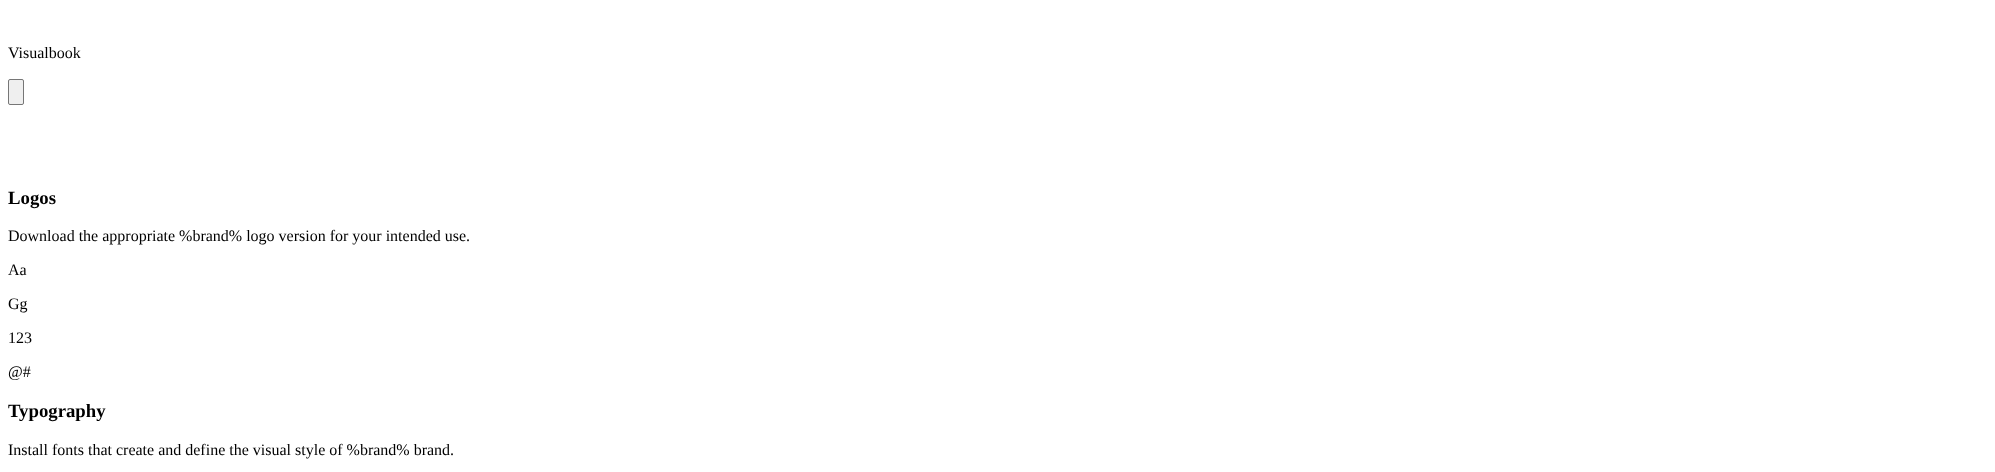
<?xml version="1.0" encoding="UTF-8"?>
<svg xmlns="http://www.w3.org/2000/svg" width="1995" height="472">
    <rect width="100%" height="100%" fill="#FFFFFF"/>
    <text x="8" y="58" font-family="Liberation Serif" font-size="16" fill="#000000">Visualbook</text>
    <rect x="8.5" y="79.5" width="15" height="25" rx="1.5" fill="#EFEFEF" stroke="#767676"/>
    <text x="8" y="204" font-family="Liberation Serif" font-size="18.75" font-weight="700" fill="#000000">Logos</text>
    <text x="8" y="241" font-family="Liberation Serif" font-size="16" fill="#000000">Download the appropriate %brand% logo version for your intended use.</text>
    <text x="8" y="275" font-family="Liberation Serif" font-size="16" fill="#000000">Aa</text>
    <text x="8" y="309" font-family="Liberation Serif" font-size="16" fill="#000000">Gg</text>
    <text x="8" y="343" font-family="Liberation Serif" font-size="16" fill="#000000">123</text>
    <text x="8" y="377" font-family="Liberation Serif" font-size="16" fill="#000000">@#</text>
    <text x="8" y="417" font-family="Liberation Serif" font-size="18.75" font-weight="700" fill="#000000">Typography</text>
    <text x="8" y="455" font-family="Liberation Serif" font-size="16" fill="#000000">Install fonts that create and define the visual style of %brand% brand.</text>
</svg>
